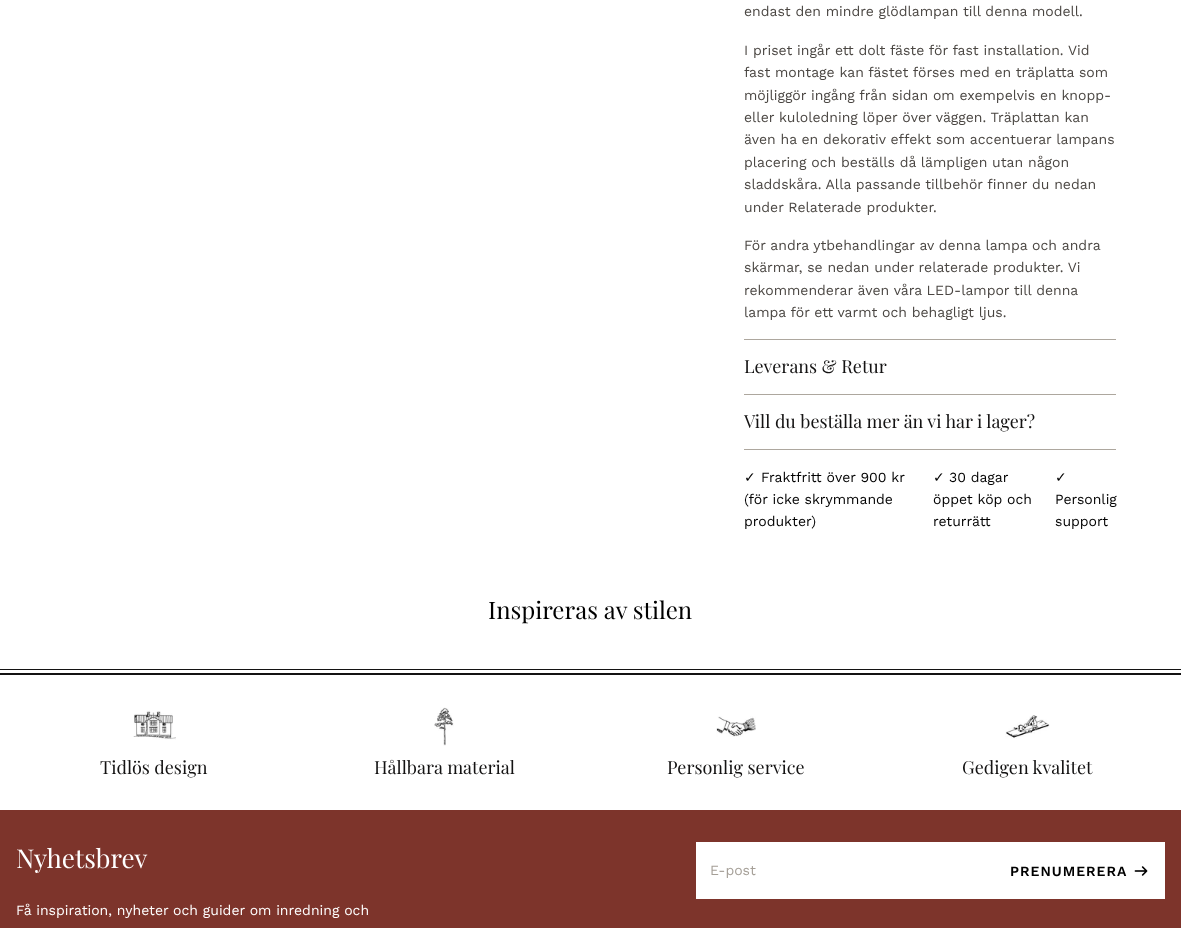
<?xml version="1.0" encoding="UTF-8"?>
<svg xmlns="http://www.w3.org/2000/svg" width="1181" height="928">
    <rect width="100%" height="100%" fill="#FFFFFF"/>
    <rect x="744" y="339" width="372" height="1" fill="#ADA79E"/>
    <text x="744" y="16" font-family="Work Sans" font-size="14" fill="#4A4642">endast den mindre glödlampan till denna modell.</text>
    <text font-family="Work Sans" font-size="14" fill="#4A4642">
        <tspan x="744" y="55">I priset ingår ett dolt fäste för fast installation. Vid</tspan>
        <tspan x="744" y="77">fast montage kan fästet förses med en träplatta som</tspan>
        <tspan x="744" y="100">möjliggör ingång från sidan om exempelvis en knopp-</tspan>
        <tspan x="744" y="122">eller kuloledning löper över väggen. Träplattan kan</tspan>
        <tspan x="744" y="144">även ha en dekorativ effekt som accentuerar lampans</tspan>
        <tspan x="744" y="167">placering och beställs då lämpligen utan någon</tspan>
        <tspan x="744" y="189">sladdskåra. Alla passande tillbehör finner du nedan</tspan>
        <tspan x="744" y="212">under Relaterade produkter.</tspan>
    </text>
    <text font-family="Work Sans" font-size="14" fill="#4A4642">
        <tspan x="744" y="250">För andra ytbehandlingar av denna lampa och andra</tspan>
        <tspan x="744" y="272">skärmar, se nedan under relaterade produkter. Vi</tspan>
        <tspan x="744" y="295">rekommenderar även våra LED-lampor till denna</tspan>
        <tspan x="744" y="317">lampa för ett varmt och behagligt ljus.</tspan>
    </text>
    <rect x="744" y="394" width="372" height="1" fill="#ADA79E"/>
    <text x="744" y="373" font-family="Playfair Display" font-size="18" fill="#141313">Leverans &amp; Retur</text>
    <rect x="744" y="449" width="372" height="1" fill="#ADA79E"/>
    <text x="744" y="428" font-family="Playfair Display" font-size="18" fill="#141313">Vill du beställa mer än vi har i lager?</text>
    <text x="744" y="482" font-family="DejaVu Sans" font-size="14" fill="#000000">✓</text>
    <text x="761" y="482" font-family="Work Sans" font-size="14" fill="#000000">Fraktfritt över 900 kr</text>
    <text font-family="Work Sans" font-size="14" fill="#000000">
        <tspan x="744" y="504">(för icke skrymmande</tspan>
        <tspan x="744" y="526">produkter)</tspan>
    </text>
    <text x="933" y="482" font-family="DejaVu Sans" font-size="14" fill="#000000">✓</text>
    <text x="949" y="482" font-family="Work Sans" font-size="14" fill="#000000">30 dagar</text>
    <text font-family="Work Sans" font-size="14" fill="#000000">
        <tspan x="933" y="504">öppet köp och</tspan>
        <tspan x="933" y="526">returrätt</tspan>
    </text>
    <text x="1055" y="482" font-family="DejaVu Sans" font-size="14" fill="#000000">✓</text>
    <text font-family="Work Sans" font-size="14" fill="#000000">
        <tspan x="1055" y="504">Personlig</tspan>
        <tspan x="1055" y="526">support</tspan>
    </text>
    <text x="488" y="619" font-family="Playfair Display" font-size="24" fill="#000000">Inspireras av stilen</text>
    <rect x="0" y="669" width="1181" height="1" fill="#141313"/>
    <rect x="0" y="673" width="1181" height="2" fill="#141313"/>
    <image x="133" y="710" width="43" height="30" href="img_01.png"/>
    <text x="100" y="774" font-family="Playfair Display" font-size="18" fill="#141313">Tidlös design</text>
    <image x="434" y="707" width="20" height="39" href="img_02.png"/>
    <text x="374" y="774" font-family="Playfair Display" font-size="18" fill="#141313">Hållbara material</text>
    <image x="716" y="716" width="40" height="21" href="img_03.png"/>
    <text x="667" y="774" font-family="Playfair Display" font-size="18" fill="#141313">Personlig service</text>
    <image x="1005" y="715" width="45" height="24" href="img_04.png"/>
    <text x="962" y="774" font-family="Playfair Display" font-size="18" fill="#141313">Gedigen kvalitet</text>
    <rect x="0" y="810" width="1181" height="118" fill="#7D342B"/>
    <text x="16" y="868" font-family="Playfair Display" font-size="26" fill="#FFFFFF">Nyhetsbrev</text>
    <rect x="696" y="842" width="469" height="57" fill="#FFFFFF"/>
    <text x="710" y="875" font-family="Work Sans" font-size="14" fill="#A59F97">E-post</text>
    <text x="1010" y="876" font-family="Work Sans" font-size="14" font-weight="600" letter-spacing="1" fill="#000000">PRENUMERERA</text>
    <image x="1134" y="866" width="14" height="10" href="img_05.png"/>
    <text x="16" y="915" font-family="Work Sans" font-size="14" fill="#FFFFFF">Få inspiration, nyheter och guider om inredning och</text>
</svg>
